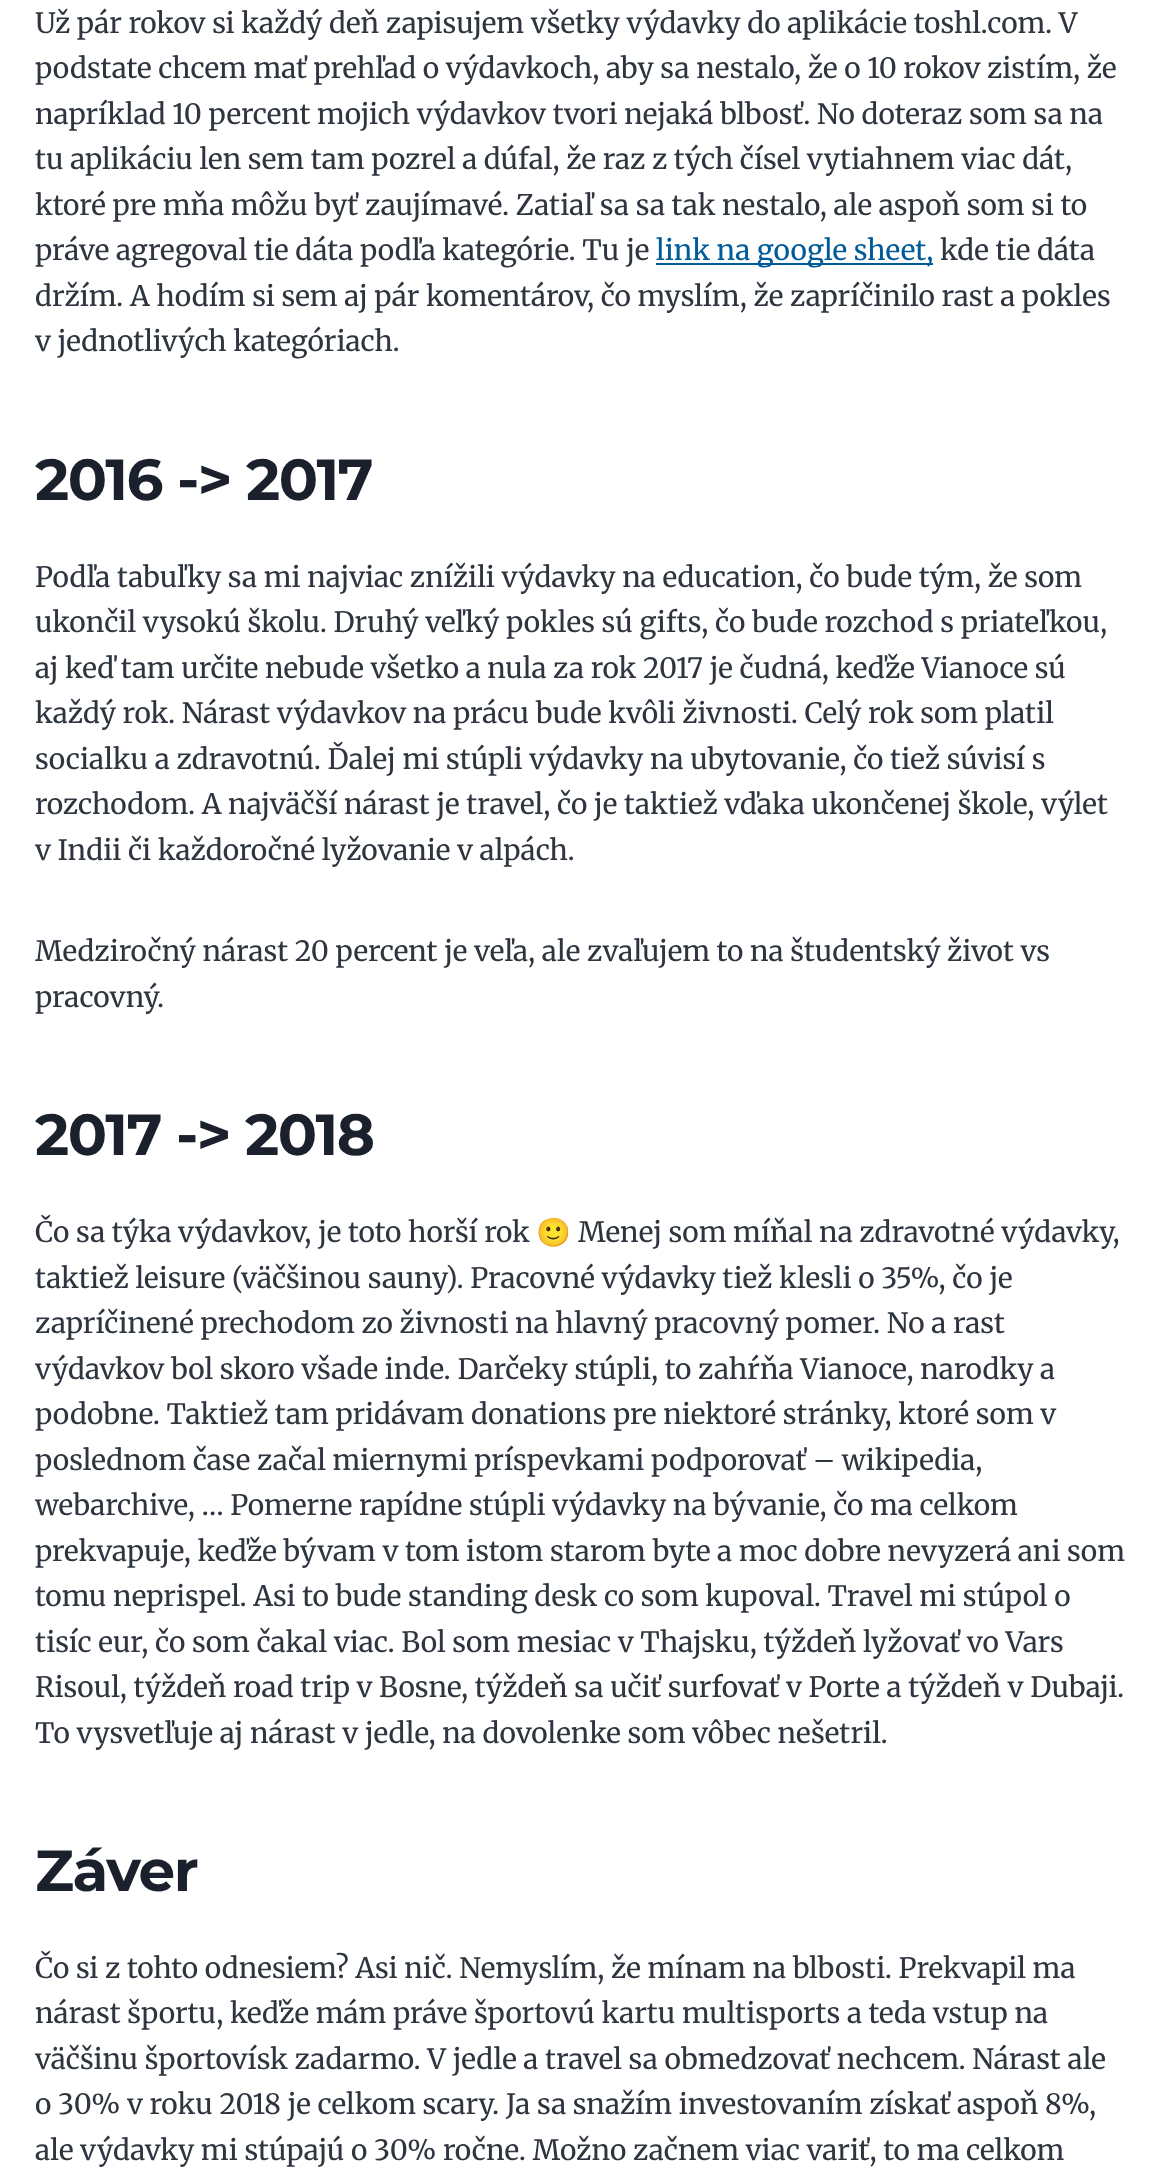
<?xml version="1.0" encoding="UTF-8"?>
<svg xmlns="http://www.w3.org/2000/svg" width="1159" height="2183">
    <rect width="100%" height="100%" fill="#FFFFFF"/>
    <text font-family="Merriweather" font-size="28" fill="#2E353F">
        <tspan x="35" y="33">Už pár rokov si každý deň zapisujem všetky výdavky do aplikácie toshl.com. V</tspan>
        <tspan x="35" y="78">podstate chcem mať prehľad o výdavkoch, aby sa nestalo, že o 10 rokov zistím, že</tspan>
        <tspan x="35" y="124">napríklad 10 percent mojich výdavkov tvori nejaká blbosť. No doteraz som sa na</tspan>
        <tspan x="35" y="169">tu aplikáciu len sem tam pozrel a dúfal, že raz z tých čísel vytiahnem viac dát,</tspan>
        <tspan x="35" y="215">ktoré pre mňa môžu byť zaujímavé. Zatiaľ sa sa tak nestalo, ale aspoň som si to</tspan>
        <tspan x="35" y="260">práve agregoval tie dáta podľa kategórie. Tu je</tspan>
    </text>
    <rect x="656" y="263" width="277" height="2" fill="#005B99"/>
    <text x="656" y="260" font-family="Merriweather" font-size="28" fill="#005B99">link na google sheet,</text>
    <text x="940" y="260" font-family="Merriweather" font-size="28" fill="#2E353F">kde tie dáta</text>
    <text font-family="Merriweather" font-size="28" fill="#2E353F">
        <tspan x="35" y="306">držím. A hodím si sem aj pár komentárov, čo myslím, že zapríčinilo rast a pokles</tspan>
        <tspan x="35" y="351">v jednotlivých kategóriach.</tspan>
    </text>
    <text x="35" y="500" font-family="Montserrat" font-size="58" font-weight="700" letter-spacing="-1.5" fill="#1A202C">2016 -&gt; 2017</text>
    <text font-family="Merriweather" font-size="28" fill="#2E353F">
        <tspan x="35" y="587">Podľa tabuľky sa mi najviac znížili výdavky na education, čo bude tým, že som</tspan>
        <tspan x="35" y="632">ukončil vysokú školu. Druhý veľký pokles sú gifts, čo bude rozchod s priateľkou,</tspan>
        <tspan x="35" y="678">aj keď tam určite nebude všetko a nula za rok 2017 je čudná, keďže Vianoce sú</tspan>
        <tspan x="35" y="723">každý rok. Nárast výdavkov na prácu bude kvôli živnosti. Celý rok som platil</tspan>
        <tspan x="35" y="769">socialku a zdravotnú. Ďalej mi stúpli výdavky na ubytovanie, čo tiež súvisí s</tspan>
        <tspan x="35" y="814">rozchodom. A najväčší nárast je travel, čo je taktiež vďaka ukončenej škole, výlet</tspan>
        <tspan x="35" y="860">v Indii či každoročné lyžovanie v alpách.</tspan>
    </text>
    <text font-family="Merriweather" font-size="28" fill="#2E353F">
        <tspan x="35" y="961">Medziročný nárast 20 percent je veľa, ale zvaľujem to na študentský život vs</tspan>
        <tspan x="35" y="1007">pracovný.</tspan>
    </text>
    <text x="35" y="1155" font-family="Montserrat" font-size="58" font-weight="700" letter-spacing="-1.5" fill="#1A202C">2017 -&gt; 2018</text>
    <text x="35" y="1242" font-family="Merriweather" font-size="28" fill="#2E353F">Čo sa týka výdavkov, je toto horší rok</text>
    <text x="536" y="1242" font-family="Noto Color Emoji" font-size="28" fill="#2E353F">🙂</text>
    <text x="578" y="1242" font-family="Merriweather" font-size="28" fill="#2E353F">Menej som míňal na zdravotné výdavky,</text>
    <text font-family="Merriweather" font-size="28" fill="#2E353F">
        <tspan x="35" y="1288">taktiež leisure (väčšinou sauny). Pracovné výdavky tiež klesli o 35%, čo je</tspan>
        <tspan x="35" y="1333">zapríčinené prechodom zo živnosti na hlavný pracovný pomer. No a rast</tspan>
        <tspan x="35" y="1379">výdavkov bol skoro všade inde. Darčeky stúpli, to zahŕňa Vianoce, narodky a</tspan>
        <tspan x="35" y="1424">podobne. Taktiež tam pridávam donations pre niektoré stránky, ktoré som v</tspan>
        <tspan x="35" y="1470">poslednom čase začal miernymi príspevkami podporovať – wikipedia,</tspan>
        <tspan x="35" y="1515">webarchive, … Pomerne rapídne stúpli výdavky na bývanie, čo ma celkom</tspan>
        <tspan x="35" y="1561">prekvapuje, keďže bývam v tom istom starom byte a moc dobre nevyzerá ani som</tspan>
        <tspan x="35" y="1606">tomu neprispel. Asi to bude standing desk co som kupoval. Travel mi stúpol o</tspan>
        <tspan x="35" y="1652">tisíc eur, čo som čakal viac. Bol som mesiac v Thajsku, týždeň lyžovať vo Vars</tspan>
        <tspan x="35" y="1697">Risoul, týždeň road trip v Bosne, týždeň sa učiť surfovať v Porte a týždeň v Dubaji.</tspan>
        <tspan x="35" y="1743">To vysvetľuje aj nárast v jedle, na dovolenke som vôbec nešetril.</tspan>
    </text>
    <text x="35" y="1891" font-family="Montserrat" font-size="58" font-weight="700" letter-spacing="-1.5" fill="#1A202C">Záver</text>
    <text font-family="Merriweather" font-size="28" fill="#2E353F">
        <tspan x="35" y="1978">Čo si z tohto odnesiem? Asi nič. Nemyslím, že mínam na blbosti. Prekvapil ma</tspan>
        <tspan x="35" y="2023">nárast športu, keďže mám práve športovú kartu multisports a teda vstup na</tspan>
        <tspan x="35" y="2069">väčšinu športovísk zadarmo. V jedle a travel sa obmedzovať nechcem. Nárast ale</tspan>
        <tspan x="35" y="2114">o 30% v roku 2018 je celkom scary. Ja sa snažím investovaním získať aspoň 8%,</tspan>
        <tspan x="35" y="2160">ale výdavky mi stúpajú o 30% ročne. Možno začnem viac variť, to ma celkom</tspan>
    </text>
</svg>
